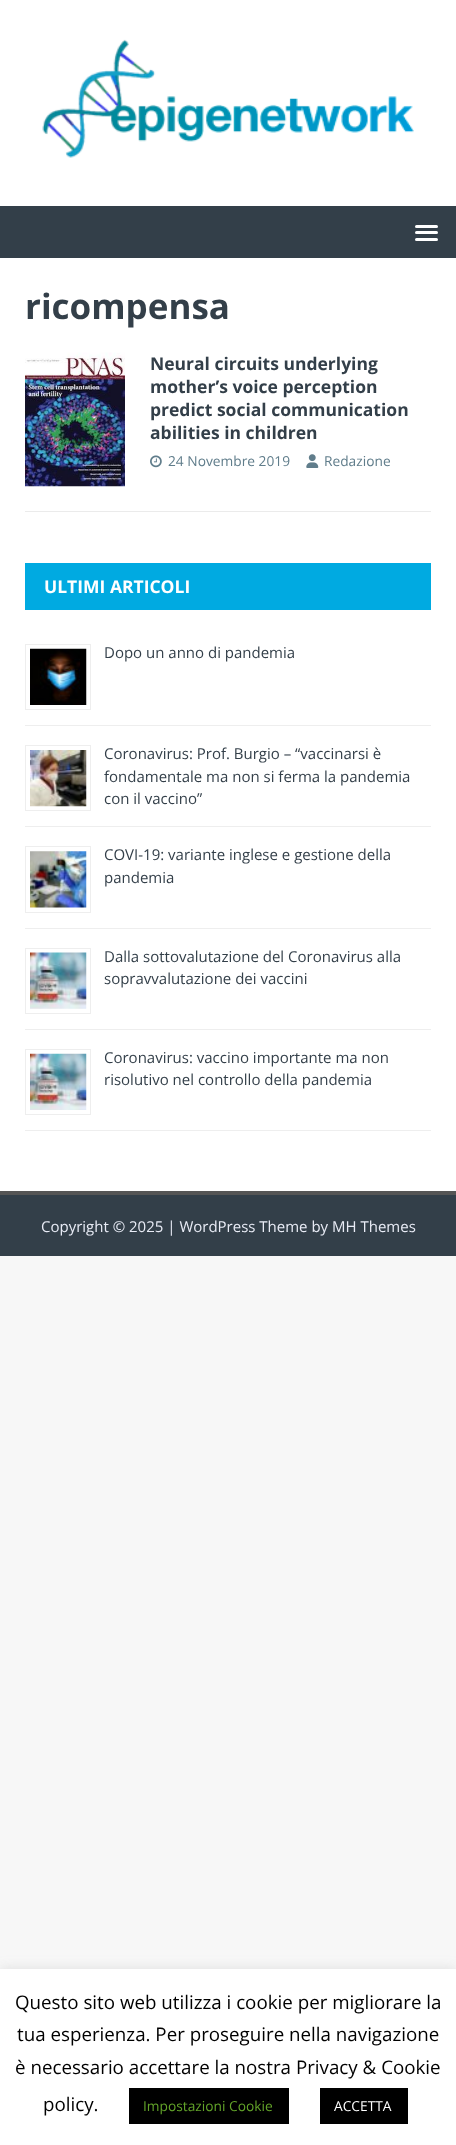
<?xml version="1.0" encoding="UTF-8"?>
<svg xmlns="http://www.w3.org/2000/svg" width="456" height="2145">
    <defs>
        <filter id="blur1" x="-50%" y="-200%" width="200%" height="500%"><feGaussianBlur stdDeviation="6"/></filter>
    </defs>
    <rect width="100%" height="100%" fill="#F7F7F7"/>
    <rect x="0" y="0" width="456" height="206" fill="#FFFFFF"/>
    <image x="42" y="39" width="372" height="119" href="img_01.png"/>
    <rect x="0" y="206" width="456" height="52" fill="#333F49"/>
    <rect x="415" y="225" width="23" height="3" rx="1.5" fill="#FFFFFF"/>
    <rect x="415" y="231" width="23" height="3" rx="1.5" fill="#FFFFFF"/>
    <rect x="415" y="238" width="23" height="3" rx="1.5" fill="#FFFFFF"/>
    <rect x="0" y="258" width="456" height="933" fill="#FFFFFF"/>
    <text x="25" y="319" font-family="Open Sans" font-size="35" font-weight="700" fill="#333F49">ricompensa</text>
    <rect x="25" y="511" width="406" height="1" fill="#EBEBEB"/>
    <image x="25" y="352" width="100" height="135" href="img_02.png"/>
    <text font-family="Open Sans" font-size="17.5" font-weight="700" fill="#333F49">
        <tspan x="150" y="370">Neural circuits underlying</tspan>
        <tspan x="150" y="393">mother’s voice perception</tspan>
        <tspan x="150" y="416">predict social communication</tspan>
        <tspan x="150" y="439">abilities in children</tspan>
    </text>
    <image x="150" y="455" width="12" height="13" href="img_03.png"/>
    <text x="168" y="466" font-family="Open Sans" font-size="13.75" fill="#607D8B">24 Novembre 2019</text>
    <image x="306" y="454" width="13" height="14" href="img_04.png"/>
    <text x="324" y="466" font-family="Open Sans" font-size="13.75" fill="#607D8B">Redazione</text>
    <rect x="25" y="563" width="406" height="47" fill="#00AAE1"/>
    <text x="44" y="593" font-family="Open Sans" font-size="17.5" font-weight="700" fill="#FFFFFF">ULTIMI ARTICOLI</text>
    <rect x="25" y="725" width="406" height="1" fill="#EEEEEE"/>
    <rect x="25.5" y="644.5" width="65" height="65" fill="none" stroke="#EEEEEE"/>
    <image x="30" y="648" width="57" height="57" href="img_05.png"/>
    <text x="104" y="658" font-family="Open Sans" font-size="15" fill="#333F49">Dopo un anno di pandemia</text>
    <rect x="25" y="826" width="406" height="1" fill="#EEEEEE"/>
    <rect x="25.5" y="745.5" width="65" height="65" fill="none" stroke="#EEEEEE"/>
    <image x="30" y="750" width="57" height="57" href="img_06.png"/>
    <text font-family="Open Sans" font-size="15" fill="#333F49">
        <tspan x="104" y="759">Coronavirus: Prof. Burgio – “vaccinarsi è</tspan>
        <tspan x="104" y="782">fondamentale ma non si ferma la pandemia</tspan>
        <tspan x="104" y="804">con il vaccino”</tspan>
    </text>
    <rect x="25" y="928" width="406" height="1" fill="#EEEEEE"/>
    <rect x="25.5" y="846.5" width="65" height="66" fill="none" stroke="#EEEEEE"/>
    <image x="30" y="851" width="57" height="57" href="img_07.png"/>
    <text font-family="Open Sans" font-size="15" fill="#333F49">
        <tspan x="104" y="860">COVI-19: variante inglese e gestione della</tspan>
        <tspan x="104" y="883">pandemia</tspan>
    </text>
    <rect x="25" y="1029" width="406" height="1" fill="#EEEEEE"/>
    <rect x="25.5" y="948.5" width="65" height="65" fill="none" stroke="#EEEEEE"/>
    <image x="30" y="952" width="57" height="57" href="img_08.png"/>
    <text font-family="Open Sans" font-size="15" fill="#333F49">
        <tspan x="104" y="962">Dalla sottovalutazione del Coronavirus alla</tspan>
        <tspan x="104" y="984">sopravvalutazione dei vaccini</tspan>
    </text>
    <rect x="25" y="1130" width="406" height="1" fill="#EEEEEE"/>
    <rect x="25.5" y="1049.5" width="65" height="65" fill="none" stroke="#EEEEEE"/>
    <image x="30" y="1053" width="57" height="57" href="img_09.png"/>
    <text font-family="Open Sans" font-size="15" fill="#333F49">
        <tspan x="104" y="1063">Coronavirus: vaccino importante ma non</tspan>
        <tspan x="104" y="1085">risolutivo nel controllo della pandemia</tspan>
    </text>
    <rect x="0" y="1195" width="456" height="61" fill="#333F49"/>
    <rect x="0" y="1191" width="456" height="4" fill="#555555"/>
    <text x="41" y="1232" font-family="Open Sans" font-size="15" fill="#E9ECF6">Copyright © 2025 | WordPress Theme by MH Themes</text>
    <rect x="0" y="1968" width="456" height="176" fill="#ACABAB" fill-opacity="0.3" filter="url(#blur1)"/>
    <rect x="0" y="1969" width="456" height="176" fill="#FFFFFF"/>
    <text x="15" y="2009" font-family="Open Sans" font-size="18.75" fill="#000000">Questo sito web utilizza i cookie per migliorare la</text>
    <text x="17" y="2041" font-family="Open Sans" font-size="18.75" fill="#000000">tua esperienza. Per proseguire nella navigazione</text>
    <text x="15" y="2074" font-family="Open Sans" font-size="18.75" fill="#000000">è necessario accettare la nostra Privacy &amp; Cookie</text>
    <text x="43" y="2111" font-family="Open Sans" font-size="18.75" fill="#000000">policy.</text>
    <rect x="129" y="2088" width="160" height="36" fill="#000000"/>
    <text x="143" y="2111" font-family="Open Sans" font-size="13.75" fill="#62A329">Impostazioni Cookie</text>
    <rect x="320" y="2088" width="88" height="36" fill="#000000"/>
    <text x="334" y="2111" font-family="Open Sans" font-size="13.75" fill="#FFFFFF">ACCETTA</text>
</svg>
